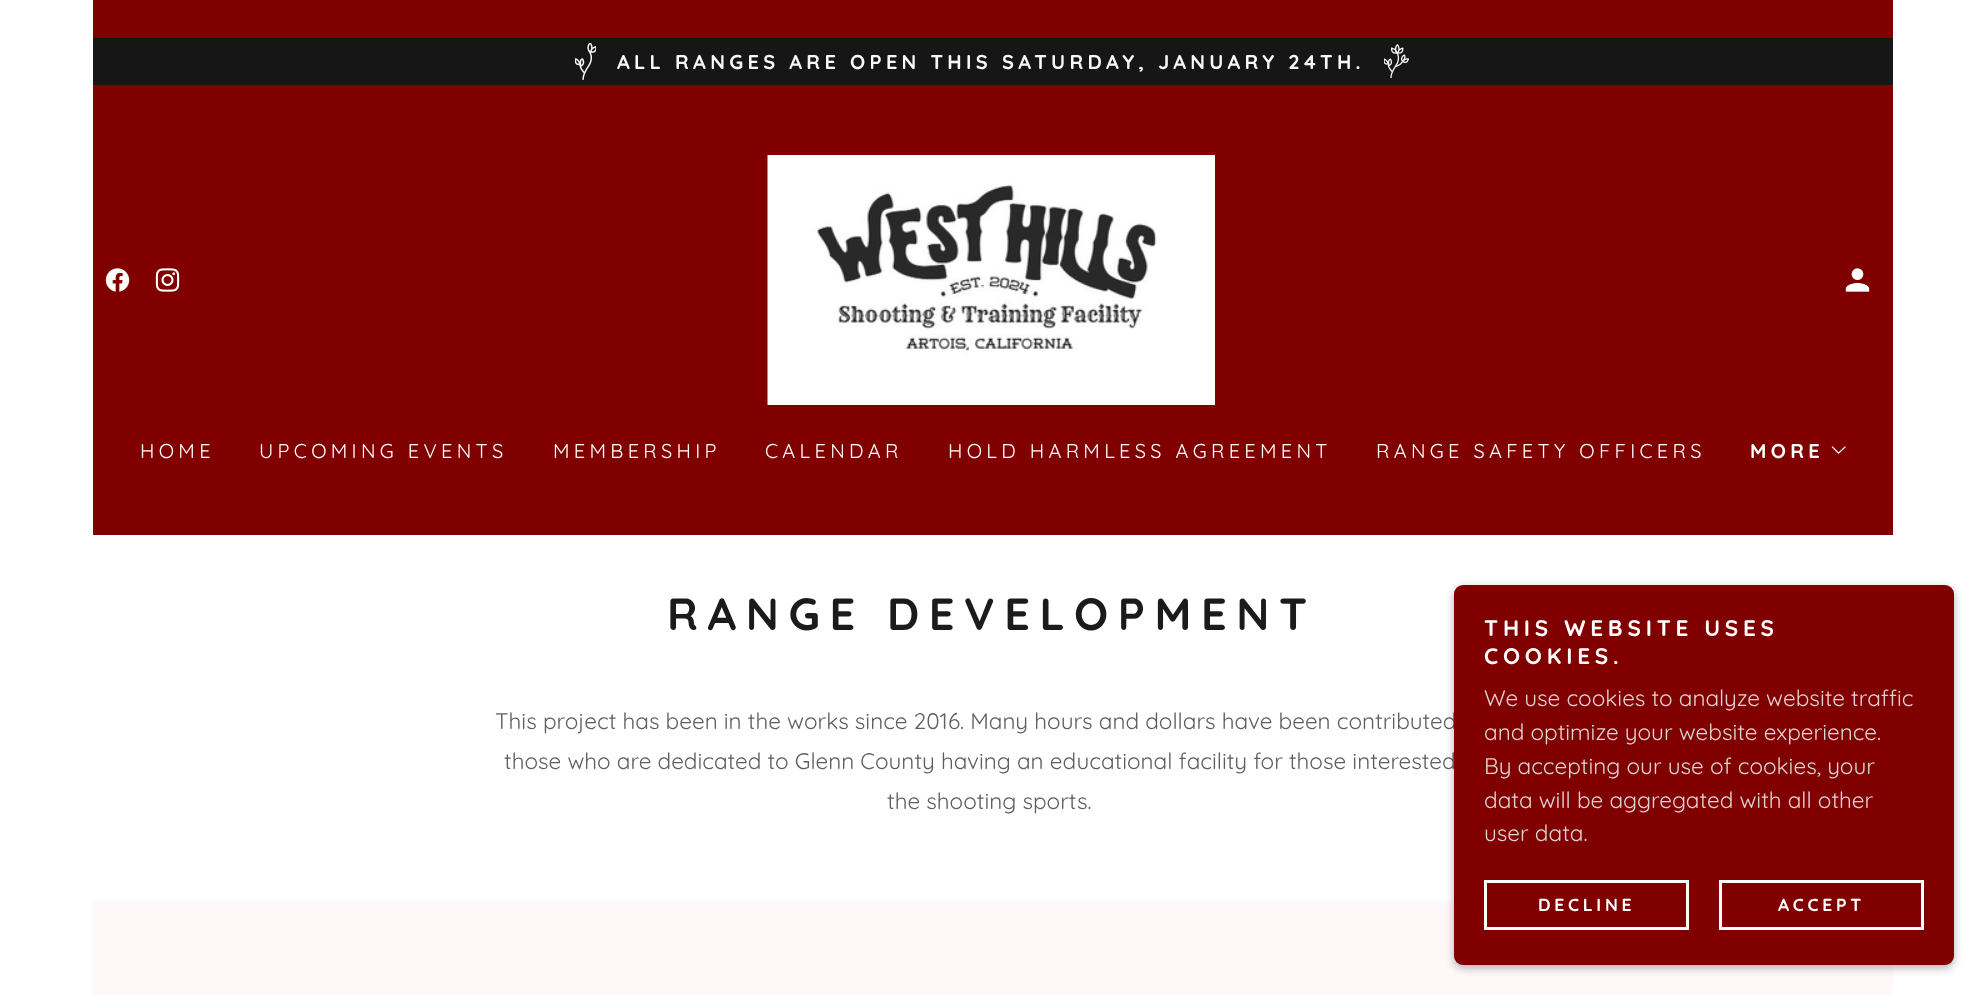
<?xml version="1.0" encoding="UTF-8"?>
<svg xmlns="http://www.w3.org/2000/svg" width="1983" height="995">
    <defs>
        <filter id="blur1" x="-50%" y="-200%" width="200%" height="500%"><feGaussianBlur stdDeviation="4"/></filter>
    </defs>
    <rect width="100%" height="100%" fill="#FFFFFF"/>
    <rect x="93" y="901" width="1800" height="94" fill="#FFF8F8"/>
    <rect x="93" y="0" width="1800" height="535" fill="#800000"/>
    <rect x="93" y="38" width="1800" height="47" fill="#161616"/>
    <image x="575" y="43" width="21" height="37" href="img_01.png"/>
    <text x="617" y="69" font-family="Quicksand" font-size="20" font-weight="700" letter-spacing="4.3" fill="#F7F7F7">ALL RANGES ARE OPEN THIS SATURDAY, JANUARY 24TH.</text>
    <image x="1384" y="44" width="25" height="35" href="img_02.png"/>
    <image x="105" y="268" width="25" height="24" href="img_03.png"/>
    <image x="155" y="268" width="25" height="24" href="img_04.png"/>
    <image x="767" y="155" width="448" height="250" href="img_05.png"/>
    <image x="1845" y="268" width="25" height="24" href="img_06.png"/>
    <text x="140" y="458" font-family="Quicksand" font-size="20" letter-spacing="4.3" fill="#FFFFFF">HOME</text>
    <text x="259" y="458" font-family="Quicksand" font-size="20" letter-spacing="4.3" fill="#FFFFFF">UPCOMING EVENTS</text>
    <text x="553" y="458" font-family="Quicksand" font-size="20" letter-spacing="4.3" fill="#FFFFFF">MEMBERSHIP</text>
    <text x="765" y="458" font-family="Quicksand" font-size="20" letter-spacing="4.3" fill="#FFFFFF">CALENDAR</text>
    <text x="948" y="458" font-family="Quicksand" font-size="20" letter-spacing="4.3" fill="#FFFFFF">HOLD HARMLESS AGREEMENT</text>
    <text x="1376" y="458" font-family="Quicksand" font-size="20" letter-spacing="4.3" fill="#FFFFFF">RANGE SAFETY OFFICERS</text>
    <text x="1750" y="458" font-family="Quicksand" font-size="20" font-weight="700" letter-spacing="4.3" fill="#FFFFFF">MORE</text>
    <image x="1831" y="446" width="15" height="8" href="img_07.png"/>
    <text x="667" y="630" font-family="Quicksand" font-size="45" font-weight="700" letter-spacing="9.6" fill="#1B1B1B">RANGE DEVELOPMENT</text>
    <text x="495" y="729" font-family="Quicksand" font-size="22.5" fill="#5E5E5E">This project has been in the works since 2016. Many hours and dollars have been contributed</text>
    <text x="504" y="769" font-family="Quicksand" font-size="22.5" fill="#5E5E5E">those who are dedicated to Glenn County having an educational facility for those interested</text>
    <text x="887" y="809" font-family="Quicksand" font-size="22.5" fill="#5E5E5E">the shooting sports.</text>
    <rect x="1454" y="588" width="500" height="380" rx="9" fill="#000000" fill-opacity="0.3" filter="url(#blur1)"/>
    <rect x="1454" y="585" width="500" height="380" rx="9" fill="#800000"/>
    <text font-family="Quicksand" font-size="22.5" font-weight="700" letter-spacing="4.8" fill="#FFFFFF">
        <tspan x="1484" y="636">THIS WEBSITE USES</tspan>
        <tspan x="1484" y="664">COOKIES.</tspan>
    </text>
    <text font-family="Quicksand" font-size="22.5" fill="#DFD3D3">
        <tspan x="1484" y="706">We use cookies to analyze website traffic</tspan>
        <tspan x="1484" y="740">and optimize your website experience.</tspan>
        <tspan x="1484" y="774">By accepting our use of cookies, your</tspan>
        <tspan x="1484" y="808">data will be aggregated with all other</tspan>
        <tspan x="1484" y="841">user data.</tspan>
    </text>
    <rect x="1485.5" y="881.5" width="202" height="47" fill="none" stroke="#FFFFFF" stroke-width="3"/>
    <text x="1538" y="911" font-family="Quicksand" font-size="17.5" font-weight="700" letter-spacing="3.75" fill="#FFFFFF">DECLINE</text>
    <rect x="1720.5" y="881.5" width="202" height="47" fill="none" stroke="#FFFFFF" stroke-width="3"/>
    <text x="1778" y="911" font-family="Quicksand" font-size="17.5" font-weight="700" letter-spacing="3.75" fill="#FFFFFF">ACCEPT</text>
</svg>
